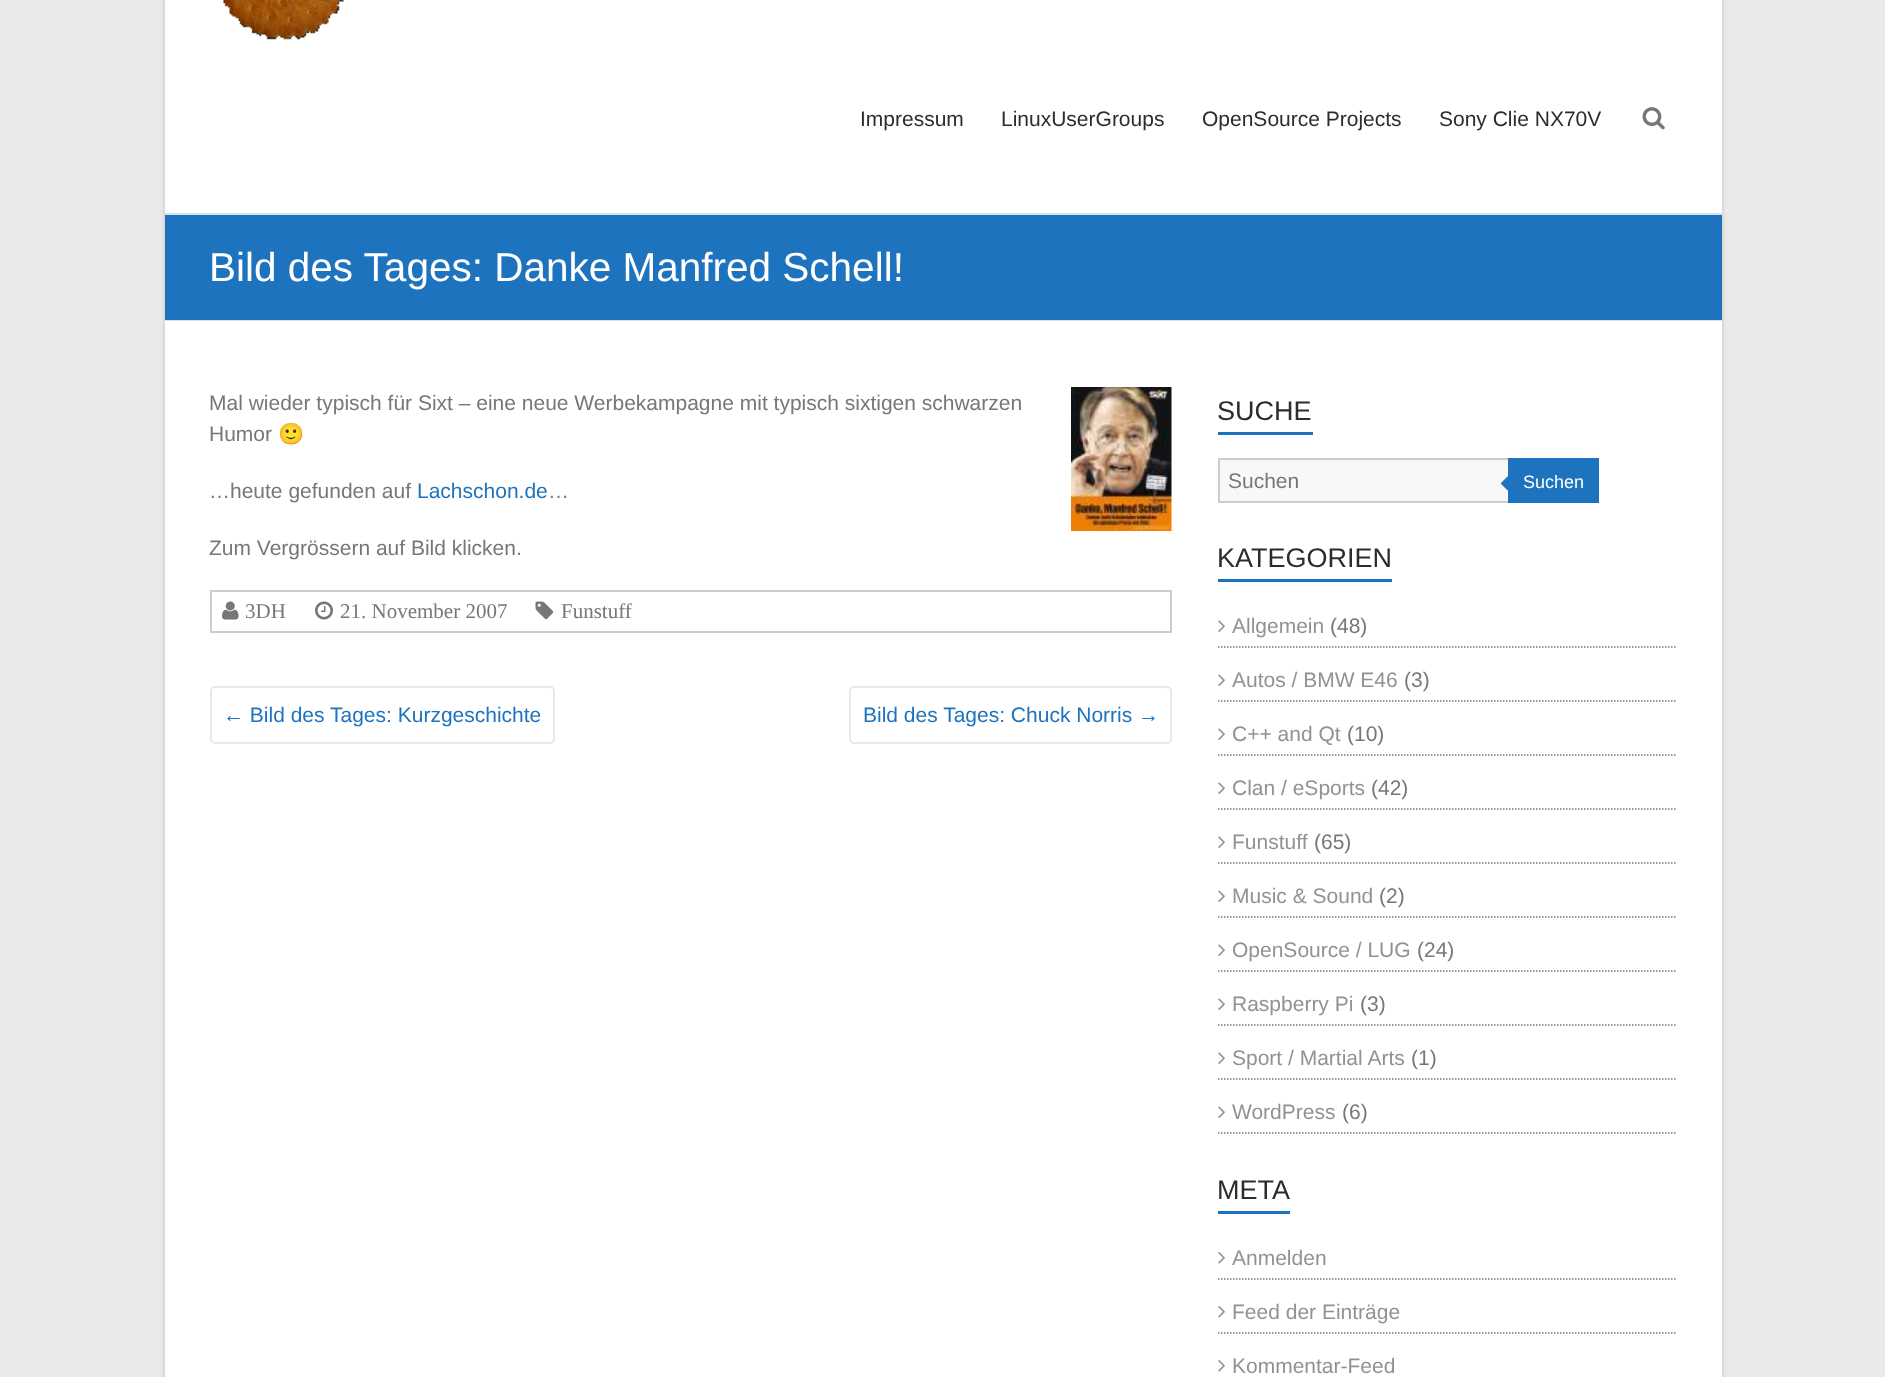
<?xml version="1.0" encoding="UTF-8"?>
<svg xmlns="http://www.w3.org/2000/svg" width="1885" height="1377">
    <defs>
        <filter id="blur1" x="-50%" y="-200%" width="200%" height="500%"><feGaussianBlur stdDeviation="2"/></filter>
    </defs>
    <rect width="100%" height="100%" fill="#EAEAEA"/>
    <rect x="165" y="-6" width="1557" height="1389" fill="#000000" fill-opacity="0.2" filter="url(#blur1)"/>
    <rect x="165" y="0" width="1557" height="1377" fill="#FFFFFF"/>
    <image x="223" y="0" width="121" height="40" href="img_01.png"/>
    <text x="860" y="126" font-family="Liberation Sans" font-size="21" fill="#2C2C2C">Impressum</text>
    <text x="1001" y="126" font-family="Liberation Sans" font-size="21" fill="#2C2C2C">LinuxUserGroups</text>
    <text x="1202" y="126" font-family="Liberation Sans" font-size="21" fill="#2C2C2C">OpenSource Projects</text>
    <text x="1439" y="126" font-family="Liberation Sans" font-size="21" fill="#2C2C2C">Sony Clie NX70V</text>
    <image x="1642" y="107" width="23" height="23" href="img_02.png"/>
    <rect x="165" y="215" width="1557" height="105" fill="#1E73BE"/>
    <rect x="165" y="320" width="1557" height="1" fill="#D2E3F2"/>
    <rect x="165" y="213" width="1557" height="2" fill="#D2E3F2"/>
    <text x="209" y="281" font-family="Liberation Sans" font-size="40.5" fill="#FFFFFF">Bild des Tages: Danke Manfred Schell!</text>
    <text x="209" y="410" font-family="Liberation Sans" font-size="21" fill="#777777">Mal wieder typisch für Sixt – eine neue Werbekampagne mit typisch sixtigen schwarzen</text>
    <image x="1071" y="387" width="101" height="144" href="img_03.png"/>
    <text x="209" y="441" font-family="Liberation Sans" font-size="21" fill="#777777">Humor</text>
    <text x="278" y="441" font-family="Noto Color Emoji" font-size="21" fill="#777777">🙂</text>
    <text x="209" y="498" font-family="Liberation Sans" font-size="21" fill="#777777">…heute gefunden auf</text>
    <text x="417" y="498" font-family="Liberation Sans" font-size="21" fill="#1E73BE">Lachschon.de</text>
    <text x="548" y="498" font-family="Liberation Sans" font-size="21" fill="#777777">…</text>
    <text x="209" y="555" font-family="Liberation Sans" font-size="21" fill="#777777">Zum Vergrössern auf Bild klicken.</text>
    <rect x="211" y="591" width="960" height="41" fill="none" stroke="#CCCCCC" stroke-width="2"/>
    <image x="222" y="601" width="17" height="19" href="img_04.png"/>
    <text x="245" y="618" font-family="Liberation Serif" font-size="21" fill="#777777">3DH</text>
    <image x="315" y="601" width="18" height="19" href="img_05.png"/>
    <text x="340" y="618" font-family="Liberation Serif" font-size="21" fill="#777777">21. November 2007</text>
    <image x="535" y="601" width="19" height="19" href="img_06.png"/>
    <text x="561" y="618" font-family="Liberation Serif" font-size="21" fill="#777777">Funstuff</text>
    <rect x="211" y="687" width="343" height="56" rx="4" fill="none" stroke="#E8E8E8" stroke-width="2"/>
    <text x="223" y="722" font-family="Liberation Sans" font-size="21" fill="#1E73BE">← Bild des Tages: Kurzgeschichte</text>
    <rect x="850" y="687" width="321" height="56" rx="4" fill="none" stroke="#E8E8E8" stroke-width="2"/>
    <text x="863" y="722" font-family="Liberation Sans" font-size="21" fill="#1E73BE">Bild des Tages: Chuck Norris →</text>
    <text x="1217" y="420" font-family="Liberation Sans" font-size="27" fill="#2C2C2C">SUCHE</text>
    <rect x="1218" y="432" width="95" height="3" fill="#1E73BE"/>
    <rect x="1220" y="460" width="288" height="41" fill="#F8F8F8"/>
    <rect x="1219" y="459" width="291" height="43" fill="none" stroke="#CCCCCC" stroke-width="2"/>
    <text x="1228" y="488" font-family="Liberation Sans" font-size="21" fill="#777777">Suchen</text>
    <rect x="1508" y="458" width="91" height="45" fill="#1E73BE"/>
    <image x="1500" y="476" width="8" height="15" href="img_07.png"/>
    <text x="1523" y="488" font-family="Liberation Sans" font-size="18" fill="#FFFFFF">Suchen</text>
    <text x="1217" y="567" font-family="Liberation Sans" font-size="27" fill="#2C2C2C">KATEGORIEN</text>
    <rect x="1218" y="579" width="174" height="3" fill="#1E73BE"/>
    <path d="M 1218 647 H 1677" fill="none" stroke="#777777" stroke-width="1.5" stroke-dasharray="1.5 1.5"/>
    <image x="1218" y="620" width="7" height="12" href="img_08.png"/>
    <text x="1232" y="633" font-family="Liberation Sans" font-size="21" fill="#909294">Allgemein</text>
    <text x="1330" y="633" font-family="Liberation Sans" font-size="21" fill="#777777">(48)</text>
    <path d="M 1218 701 H 1677" fill="none" stroke="#777777" stroke-width="1.5" stroke-dasharray="1.5 1.5"/>
    <image x="1218" y="674" width="7" height="12" href="img_08.png"/>
    <text x="1232" y="687" font-family="Liberation Sans" font-size="21" fill="#909294">Autos / BMW E46</text>
    <text x="1404" y="687" font-family="Liberation Sans" font-size="21" fill="#777777">(3)</text>
    <path d="M 1218 755 H 1677" fill="none" stroke="#777777" stroke-width="1.5" stroke-dasharray="1.5 1.5"/>
    <image x="1218" y="728" width="7" height="12" href="img_08.png"/>
    <text x="1232" y="741" font-family="Liberation Sans" font-size="21" fill="#909294">C++ and Qt</text>
    <text x="1347" y="741" font-family="Liberation Sans" font-size="21" fill="#777777">(10)</text>
    <path d="M 1218 809 H 1677" fill="none" stroke="#777777" stroke-width="1.5" stroke-dasharray="1.5 1.5"/>
    <image x="1218" y="782" width="7" height="12" href="img_08.png"/>
    <text x="1232" y="795" font-family="Liberation Sans" font-size="21" fill="#909294">Clan / eSports</text>
    <text x="1371" y="795" font-family="Liberation Sans" font-size="21" fill="#777777">(42)</text>
    <path d="M 1218 863 H 1677" fill="none" stroke="#777777" stroke-width="1.5" stroke-dasharray="1.5 1.5"/>
    <image x="1218" y="836" width="7" height="12" href="img_08.png"/>
    <text x="1232" y="849" font-family="Liberation Sans" font-size="21" fill="#909294">Funstuff</text>
    <text x="1314" y="849" font-family="Liberation Sans" font-size="21" fill="#777777">(65)</text>
    <path d="M 1218 917 H 1677" fill="none" stroke="#777777" stroke-width="1.5" stroke-dasharray="1.5 1.5"/>
    <image x="1218" y="890" width="7" height="12" href="img_08.png"/>
    <text x="1232" y="903" font-family="Liberation Sans" font-size="21" fill="#909294">Music &amp; Sound</text>
    <text x="1379" y="903" font-family="Liberation Sans" font-size="21" fill="#777777">(2)</text>
    <path d="M 1218 971 H 1677" fill="none" stroke="#777777" stroke-width="1.5" stroke-dasharray="1.5 1.5"/>
    <image x="1218" y="944" width="7" height="12" href="img_08.png"/>
    <text x="1232" y="957" font-family="Liberation Sans" font-size="21" fill="#909294">OpenSource / LUG</text>
    <text x="1417" y="957" font-family="Liberation Sans" font-size="21" fill="#777777">(24)</text>
    <path d="M 1218 1025 H 1677" fill="none" stroke="#777777" stroke-width="1.5" stroke-dasharray="1.5 1.5"/>
    <image x="1218" y="998" width="7" height="12" href="img_08.png"/>
    <text x="1232" y="1011" font-family="Liberation Sans" font-size="21" fill="#909294">Raspberry Pi</text>
    <text x="1360" y="1011" font-family="Liberation Sans" font-size="21" fill="#777777">(3)</text>
    <path d="M 1218 1079 H 1677" fill="none" stroke="#777777" stroke-width="1.5" stroke-dasharray="1.5 1.5"/>
    <image x="1218" y="1052" width="7" height="12" href="img_08.png"/>
    <text x="1232" y="1065" font-family="Liberation Sans" font-size="21" fill="#909294">Sport / Martial Arts</text>
    <text x="1411" y="1065" font-family="Liberation Sans" font-size="21" fill="#777777">(1)</text>
    <path d="M 1218 1133 H 1677" fill="none" stroke="#777777" stroke-width="1.5" stroke-dasharray="1.5 1.5"/>
    <image x="1218" y="1106" width="7" height="12" href="img_08.png"/>
    <text x="1232" y="1119" font-family="Liberation Sans" font-size="21" fill="#909294">WordPress</text>
    <text x="1342" y="1119" font-family="Liberation Sans" font-size="21" fill="#777777">(6)</text>
    <text x="1217" y="1199" font-family="Liberation Sans" font-size="27" fill="#2C2C2C">META</text>
    <rect x="1218" y="1211" width="72" height="3" fill="#1E73BE"/>
    <path d="M 1218 1279 H 1677" fill="none" stroke="#777777" stroke-width="1.5" stroke-dasharray="1.5 1.5"/>
    <image x="1218" y="1252" width="7" height="12" href="img_09.png"/>
    <text x="1232" y="1265" font-family="Liberation Sans" font-size="21" fill="#909294">Anmelden</text>
    <path d="M 1218 1333 H 1677" fill="none" stroke="#777777" stroke-width="1.5" stroke-dasharray="1.5 1.5"/>
    <image x="1218" y="1306" width="7" height="12" href="img_09.png"/>
    <text x="1232" y="1319" font-family="Liberation Sans" font-size="21" fill="#909294">Feed der Einträge</text>
    <image x="1218" y="1360" width="7" height="12" href="img_09.png"/>
    <text x="1232" y="1373" font-family="Liberation Sans" font-size="21" fill="#909294">Kommentar-Feed</text>
</svg>
